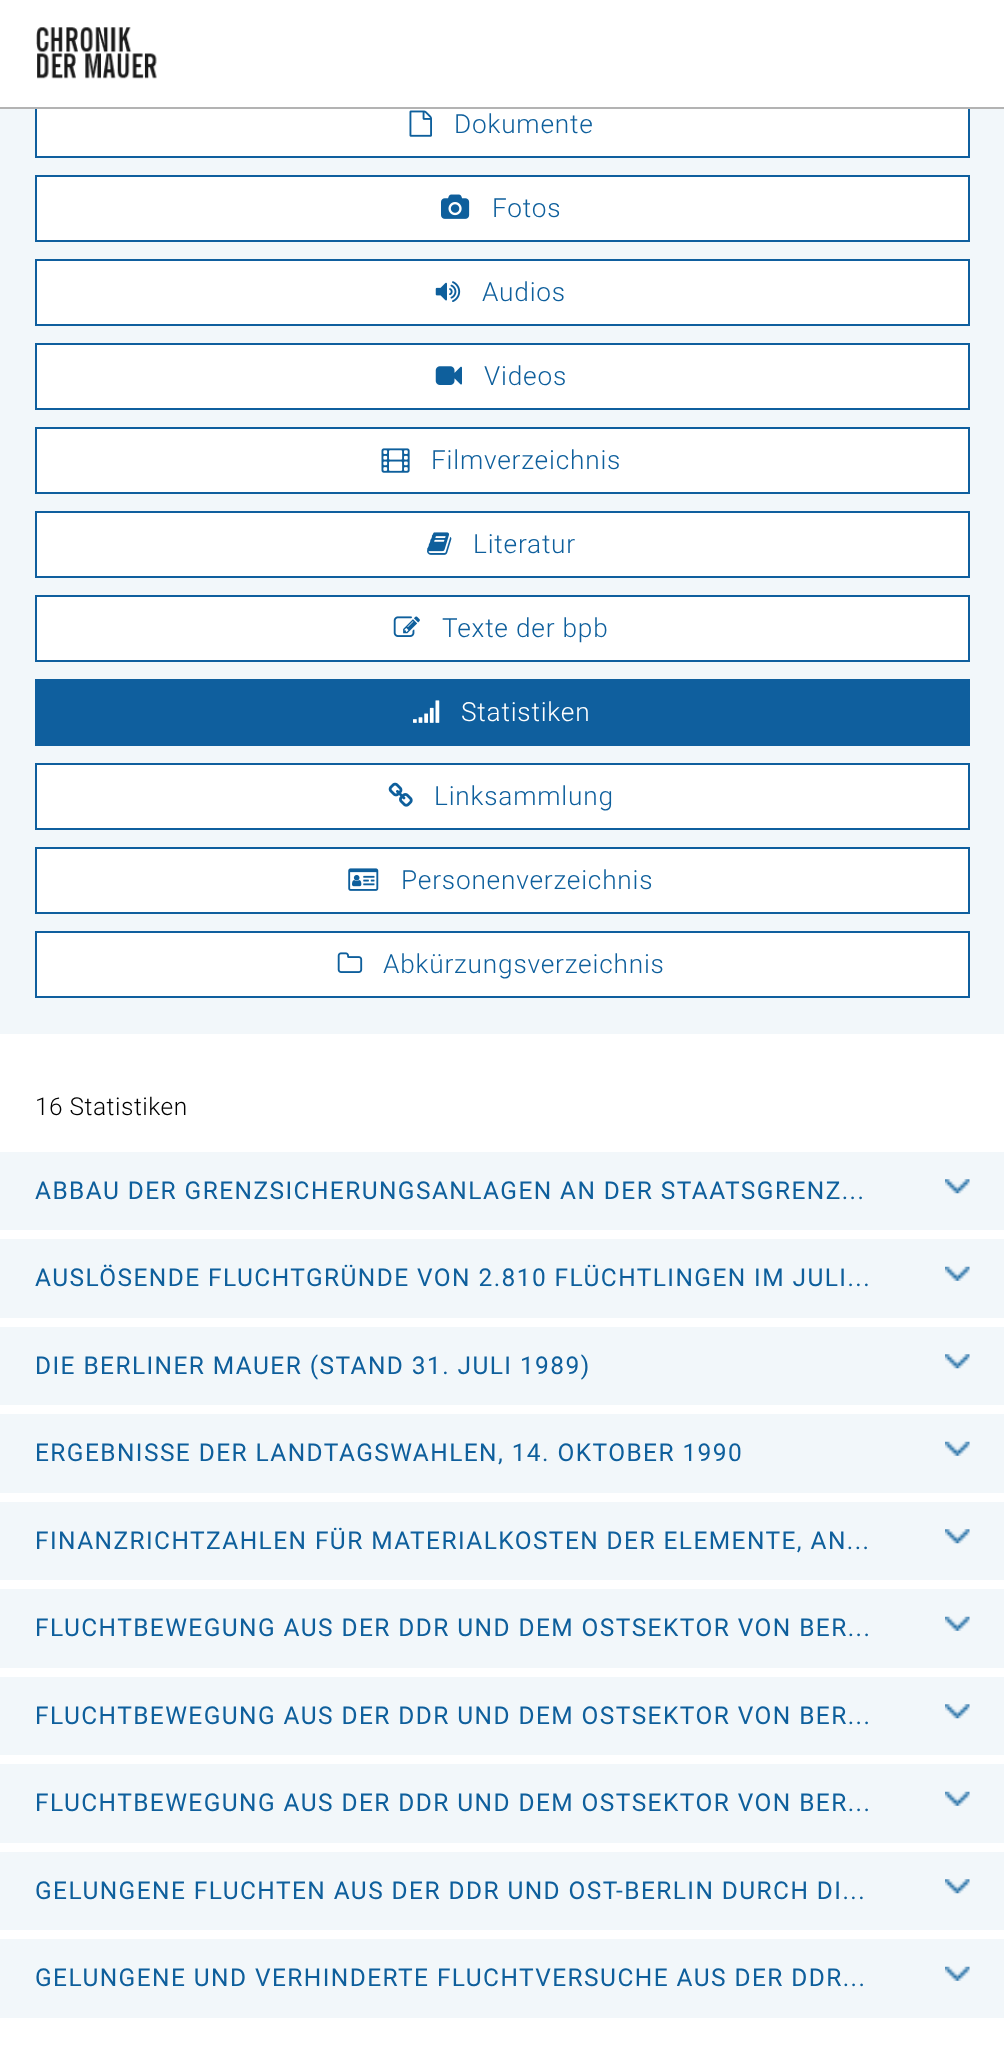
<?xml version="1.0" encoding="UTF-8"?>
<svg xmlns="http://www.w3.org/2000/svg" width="1004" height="2062">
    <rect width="100%" height="100%" fill="#FFFFFF"/>
    <rect x="0" y="109" width="1004" height="925" fill="#F2F7FA"/>
    <rect x="37" y="109" width="931" height="47" fill="#FFFFFF"/>
    <rect x="36" y="92" width="933" height="65" fill="none" stroke="#0F5F9E" stroke-width="2"/>
    <rect x="35" y="91" width="935" height="16" fill="#FFFFFF"/>
    <image x="36" y="27" width="121" height="52" href="img_01.png"/>
    <rect x="0" y="107" width="1004" height="2" fill="#B3B3B3"/>
    <image x="409" y="110" width="23" height="27" href="img_02.png"/>
    <text x="454" y="133" font-family="Roboto" font-size="26.25" font-weight="300" letter-spacing="0.8" fill="#0E5F9C">Dokumente</text>
    <rect x="36" y="176" width="933" height="65" fill="#FFFFFF" stroke="#0F5F9E" stroke-width="2"/>
    <image x="441" y="194" width="29" height="25" href="img_03.png"/>
    <text x="492" y="217" font-family="Roboto" font-size="26.25" font-weight="300" letter-spacing="0.8" fill="#0E5F9C">Fotos</text>
    <rect x="36" y="260" width="933" height="65" fill="#FFFFFF" stroke="#0F5F9E" stroke-width="2"/>
    <image x="435" y="281" width="26" height="21" href="img_04.png"/>
    <text x="482" y="301" font-family="Roboto" font-size="26.25" font-weight="300" letter-spacing="0.8" fill="#0E5F9C">Audios</text>
    <rect x="36" y="344" width="933" height="65" fill="#FFFFFF" stroke="#0F5F9E" stroke-width="2"/>
    <image x="435" y="366" width="27" height="19" href="img_05.png"/>
    <text x="484" y="385" font-family="Roboto" font-size="26.25" font-weight="300" letter-spacing="0.8" fill="#0E5F9C">Videos</text>
    <rect x="36" y="428" width="933" height="65" fill="#FFFFFF" stroke="#0F5F9E" stroke-width="2"/>
    <image x="381" y="448" width="29" height="25" href="img_06.png"/>
    <text x="431" y="469" font-family="Roboto" font-size="26.25" font-weight="300" letter-spacing="0.8" fill="#0E5F9C">Filmverzeichnis</text>
    <rect x="36" y="512" width="933" height="65" fill="#FFFFFF" stroke="#0F5F9E" stroke-width="2"/>
    <image x="427" y="532" width="25" height="23" href="img_07.png"/>
    <text x="473" y="553" font-family="Roboto" font-size="26.25" font-weight="300" letter-spacing="0.8" fill="#0E5F9C">Literatur</text>
    <rect x="36" y="596" width="933" height="65" fill="#FFFFFF" stroke="#0F5F9E" stroke-width="2"/>
    <image x="393" y="616" width="27" height="21" href="img_08.png"/>
    <text x="442" y="637" font-family="Roboto" font-size="26.25" font-weight="300" letter-spacing="0.8" fill="#0E5F9C">Texte der bpb</text>
    <rect x="35" y="679" width="935" height="67" fill="#0F5F9E"/>
    <image x="413" y="700" width="27" height="23" href="img_09.png"/>
    <text x="461" y="721" font-family="Roboto" font-size="26.25" font-weight="300" letter-spacing="0.8" fill="#FFFFFF">Statistiken</text>
    <rect x="36" y="764" width="933" height="65" fill="#FFFFFF" stroke="#0F5F9E" stroke-width="2"/>
    <image x="388" y="782" width="25" height="25" href="img_10.png"/>
    <text x="434" y="805" font-family="Roboto" font-size="26.25" font-weight="300" letter-spacing="0.8" fill="#0E5F9C">Linksammlung</text>
    <rect x="36" y="848" width="933" height="65" fill="#FFFFFF" stroke="#0F5F9E" stroke-width="2"/>
    <image x="348" y="868" width="31" height="23" href="img_11.png"/>
    <text x="401" y="889" font-family="Roboto" font-size="26.25" font-weight="300" letter-spacing="0.8" fill="#0E5F9C">Personenverzeichnis</text>
    <rect x="36" y="932" width="933" height="65" fill="#FFFFFF" stroke="#0F5F9E" stroke-width="2"/>
    <image x="337" y="952" width="26" height="21" href="img_12.png"/>
    <text x="383" y="973" font-family="Roboto" font-size="26.25" font-weight="300" letter-spacing="0.8" fill="#0E5F9C">Abkürzungsverzeichnis</text>
    <text x="35" y="1115" font-family="Roboto" font-size="24.5" font-weight="300" letter-spacing="0.5" fill="#000000">16 Statistiken</text>
    <rect x="0" y="1152" width="1004" height="78" fill="#F2F7FA"/>
    <text x="35" y="1199" font-family="Roboto" font-size="24.5" letter-spacing="1.42" fill="#0E5F9C">ABBAU DER GRENZSICHERUNGSANLAGEN AN DER STAATSGRENZ...</text>
    <image x="945" y="1179" width="25" height="15" href="img_13.png"/>
    <rect x="0" y="1239" width="1004" height="79" fill="#F2F7FA"/>
    <text x="35" y="1286" font-family="Roboto" font-size="24.5" letter-spacing="1.42" fill="#0E5F9C">AUSLÖSENDE FLUCHTGRÜNDE VON 2.810 FLÜCHTLINGEN IM JULI...</text>
    <image x="945" y="1266" width="25" height="15" href="img_14.png"/>
    <rect x="0" y="1327" width="1004" height="78" fill="#F2F7FA"/>
    <text x="35" y="1374" font-family="Roboto" font-size="24.5" letter-spacing="1.42" fill="#0E5F9C">DIE BERLINER MAUER (STAND 31. JULI 1989)</text>
    <image x="945" y="1354" width="25" height="15" href="img_13.png"/>
    <rect x="0" y="1414" width="1004" height="79" fill="#F2F7FA"/>
    <text x="35" y="1461" font-family="Roboto" font-size="24.5" letter-spacing="1.42" fill="#0E5F9C">ERGEBNISSE DER LANDTAGSWAHLEN, 14. OKTOBER 1990</text>
    <image x="945" y="1441" width="25" height="15" href="img_14.png"/>
    <rect x="0" y="1502" width="1004" height="78" fill="#F2F7FA"/>
    <text x="35" y="1549" font-family="Roboto" font-size="24.5" letter-spacing="1.42" fill="#0E5F9C">FINANZRICHTZAHLEN FÜR MATERIALKOSTEN DER ELEMENTE, AN...</text>
    <image x="945" y="1529" width="25" height="15" href="img_13.png"/>
    <rect x="0" y="1589" width="1004" height="79" fill="#F2F7FA"/>
    <text x="35" y="1636" font-family="Roboto" font-size="24.5" letter-spacing="1.42" fill="#0E5F9C">FLUCHTBEWEGUNG AUS DER DDR UND DEM OSTSEKTOR VON BER...</text>
    <image x="945" y="1616" width="25" height="15" href="img_14.png"/>
    <rect x="0" y="1677" width="1004" height="78" fill="#F2F7FA"/>
    <text x="35" y="1724" font-family="Roboto" font-size="24.5" letter-spacing="1.42" fill="#0E5F9C">FLUCHTBEWEGUNG AUS DER DDR UND DEM OSTSEKTOR VON BER...</text>
    <image x="945" y="1704" width="25" height="15" href="img_13.png"/>
    <rect x="0" y="1764" width="1004" height="79" fill="#F2F7FA"/>
    <text x="35" y="1811" font-family="Roboto" font-size="24.5" letter-spacing="1.42" fill="#0E5F9C">FLUCHTBEWEGUNG AUS DER DDR UND DEM OSTSEKTOR VON BER...</text>
    <image x="945" y="1791" width="25" height="15" href="img_14.png"/>
    <rect x="0" y="1852" width="1004" height="78" fill="#F2F7FA"/>
    <text x="35" y="1899" font-family="Roboto" font-size="24.5" letter-spacing="1.42" fill="#0E5F9C">GELUNGENE FLUCHTEN AUS DER DDR UND OST-BERLIN DURCH DI...</text>
    <image x="945" y="1879" width="25" height="15" href="img_15.png"/>
    <rect x="0" y="1939" width="1004" height="79" fill="#F2F7FA"/>
    <text x="35" y="1986" font-family="Roboto" font-size="24.5" letter-spacing="1.42" fill="#0E5F9C">GELUNGENE UND VERHINDERTE FLUCHTVERSUCHE AUS DER DDR...</text>
    <image x="945" y="1966" width="25" height="15" href="img_16.png"/>
</svg>
